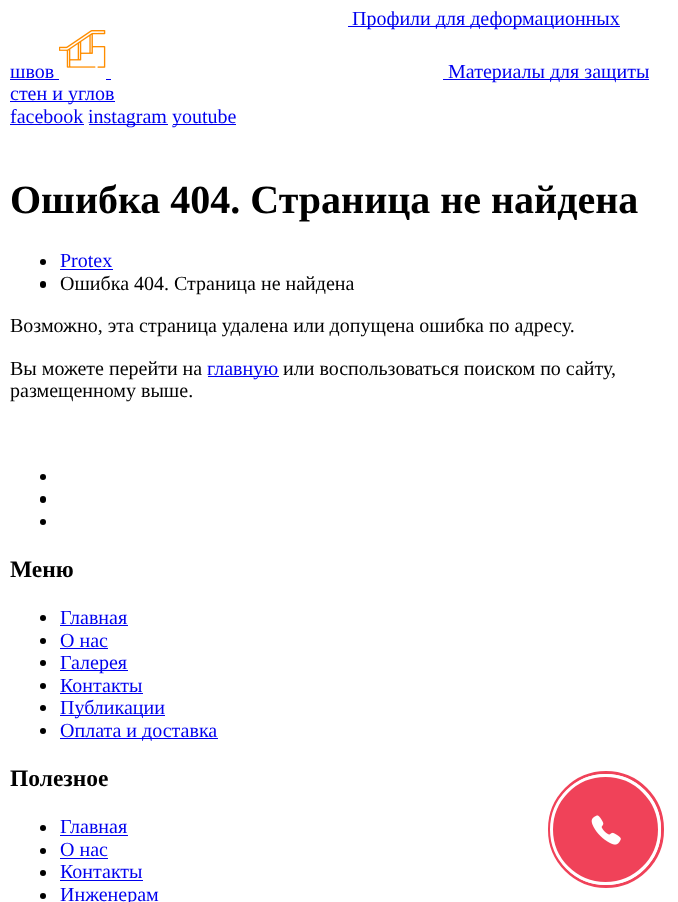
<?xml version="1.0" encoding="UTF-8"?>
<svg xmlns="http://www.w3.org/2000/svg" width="678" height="902">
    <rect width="100%" height="100%" fill="#FFFFFF"/>
    <rect x="348" y="26" width="272" height="1" fill="#0000EE"/>
    <text x="352" y="25" font-family="Liberation Serif" font-size="20" fill="#0000EE">Профили для деформационных</text>
    <image x="59" y="30" width="47" height="38" href="img_01.png"/>
    <text x="10" y="78" font-family="Liberation Serif" font-size="20" fill="#0000EE">швов</text>
    <rect x="10" y="79" width="49" height="1" fill="#0000EE"/>
    <rect x="443" y="79" width="206" height="1" fill="#0000EE"/>
    <text x="448" y="78" font-family="Liberation Serif" font-size="20" fill="#0000EE">Материалы для защиты</text>
    <rect x="10" y="101" width="105" height="1" fill="#0000EE"/>
    <text x="10" y="100" font-family="Liberation Serif" font-size="20" fill="#0000EE">стен и углов</text>
    <rect x="106" y="79" width="5" height="1" fill="#0000EE"/>
    <text x="10" y="123" font-family="Liberation Serif" font-size="20" fill="#0000EE">facebook</text>
    <rect x="10" y="124" width="74" height="1" fill="#0000EE"/>
    <rect x="89" y="124" width="79" height="1" fill="#0000EE"/>
    <text x="88" y="123" font-family="Liberation Serif" font-size="20" fill="#0000EE">instagram</text>
    <rect x="173" y="124" width="63" height="1" fill="#0000EE"/>
    <text x="172" y="123" font-family="Liberation Serif" font-size="20" fill="#0000EE">youtube</text>
    <text x="10" y="213" font-family="Liberation Serif" font-size="40" font-weight="700" fill="#000000">Ошибка 404. Страница не найдена</text>
    <circle cx="43" cy="262" r="3" fill="#000000"/>
    <text x="60" y="267" font-family="Liberation Serif" font-size="20" fill="#0000EE">Protex</text>
    <rect x="60" y="269" width="53" height="1" fill="#0000EE"/>
    <rect x="40" y="281" width="6" height="7" rx="3" fill="#000000"/>
    <text x="60" y="290" font-family="Liberation Serif" font-size="20" fill="#000000">Ошибка 404. Страница не найдена</text>
    <text x="10" y="332" font-family="Liberation Serif" font-size="20" fill="#000000">Возможно, эта страница удалена или допущена ошибка по адресу.</text>
    <text x="10" y="375" font-family="Liberation Serif" font-size="20" fill="#000000">Вы можете перейти на</text>
    <rect x="208" y="376" width="71" height="1" fill="#0000EE"/>
    <text x="207" y="375" font-family="Liberation Serif" font-size="20" fill="#0000EE">главную</text>
    <text x="283" y="375" font-family="Liberation Serif" font-size="20" fill="#000000">или воспользоваться поиском по сайту,</text>
    <text x="10" y="397" font-family="Liberation Serif" font-size="20" fill="#000000">размещенному выше.</text>
    <circle cx="43" cy="477" r="3" fill="#000000"/>
    <rect x="40" y="496" width="6" height="7" rx="3" fill="#000000"/>
    <circle cx="43" cy="522" r="3" fill="#000000"/>
    <text x="10" y="577" font-family="Liberation Serif" font-size="23.5" font-weight="700" fill="#000000">Меню</text>
    <circle cx="43" cy="618" r="3" fill="#000000"/>
    <text x="60" y="624" font-family="Liberation Serif" font-size="20" fill="#0000EE">Главная</text>
    <rect x="60" y="625" width="68" height="1" fill="#0000EE"/>
    <circle cx="43" cy="641" r="3" fill="#000000"/>
    <text x="60" y="647" font-family="Liberation Serif" font-size="20" fill="#0000EE">О нас</text>
    <rect x="60" y="648" width="48" height="1" fill="#0000EE"/>
    <circle cx="43" cy="663" r="3" fill="#000000"/>
    <rect x="60" y="670" width="68" height="1" fill="#0000EE"/>
    <text x="60" y="669" font-family="Liberation Serif" font-size="20" fill="#0000EE">Галерея</text>
    <circle cx="43" cy="686" r="3" fill="#000000"/>
    <text x="60" y="692" font-family="Liberation Serif" font-size="20" fill="#0000EE">Контакты</text>
    <rect x="60" y="693" width="83" height="1" fill="#0000EE"/>
    <circle cx="43" cy="708" r="3" fill="#000000"/>
    <rect x="60" y="715" width="105" height="1" fill="#0000EE"/>
    <text x="60" y="714" font-family="Liberation Serif" font-size="20" fill="#0000EE">Публикации</text>
    <circle cx="43" cy="731" r="3" fill="#000000"/>
    <rect x="60" y="738" width="158" height="1" fill="#0000EE"/>
    <text x="60" y="737" font-family="Liberation Serif" font-size="20" fill="#0000EE">Оплата и доставка</text>
    <text x="10" y="786" font-family="Liberation Serif" font-size="23.5" font-weight="700" fill="#000000">Полезное</text>
    <circle cx="43" cy="828" r="3" fill="#000000"/>
    <text x="60" y="833" font-family="Liberation Serif" font-size="20" fill="#0000EE">Главная</text>
    <rect x="60" y="835" width="68" height="1" fill="#0000EE"/>
    <circle cx="43" cy="851" r="3" fill="#000000"/>
    <text x="60" y="856" font-family="Liberation Serif" font-size="20" fill="#0000EE">О нас</text>
    <rect x="60" y="858" width="48" height="1" fill="#0000EE"/>
    <circle cx="43" cy="873" r="3" fill="#000000"/>
    <text x="60" y="878" font-family="Liberation Serif" font-size="20" fill="#0000EE">Контакты</text>
    <rect x="60" y="880" width="83" height="1" fill="#0000EE"/>
    <circle cx="43" cy="896" r="3" fill="#000000"/>
    <text x="60" y="901" font-family="Liberation Serif" font-size="20" fill="#0000EE">Инженерам</text>
    <rect x="549.5" y="772.5" width="113" height="114" rx="56.5" fill="none" stroke="#F04259" stroke-width="3"/>
    <circle cx="605.5" cy="829.5" r="54" fill="#F04259" stroke="#FFFFFF" stroke-width="3"/>
    <image x="591" y="815" width="30" height="30" href="img_02.png"/>
</svg>
